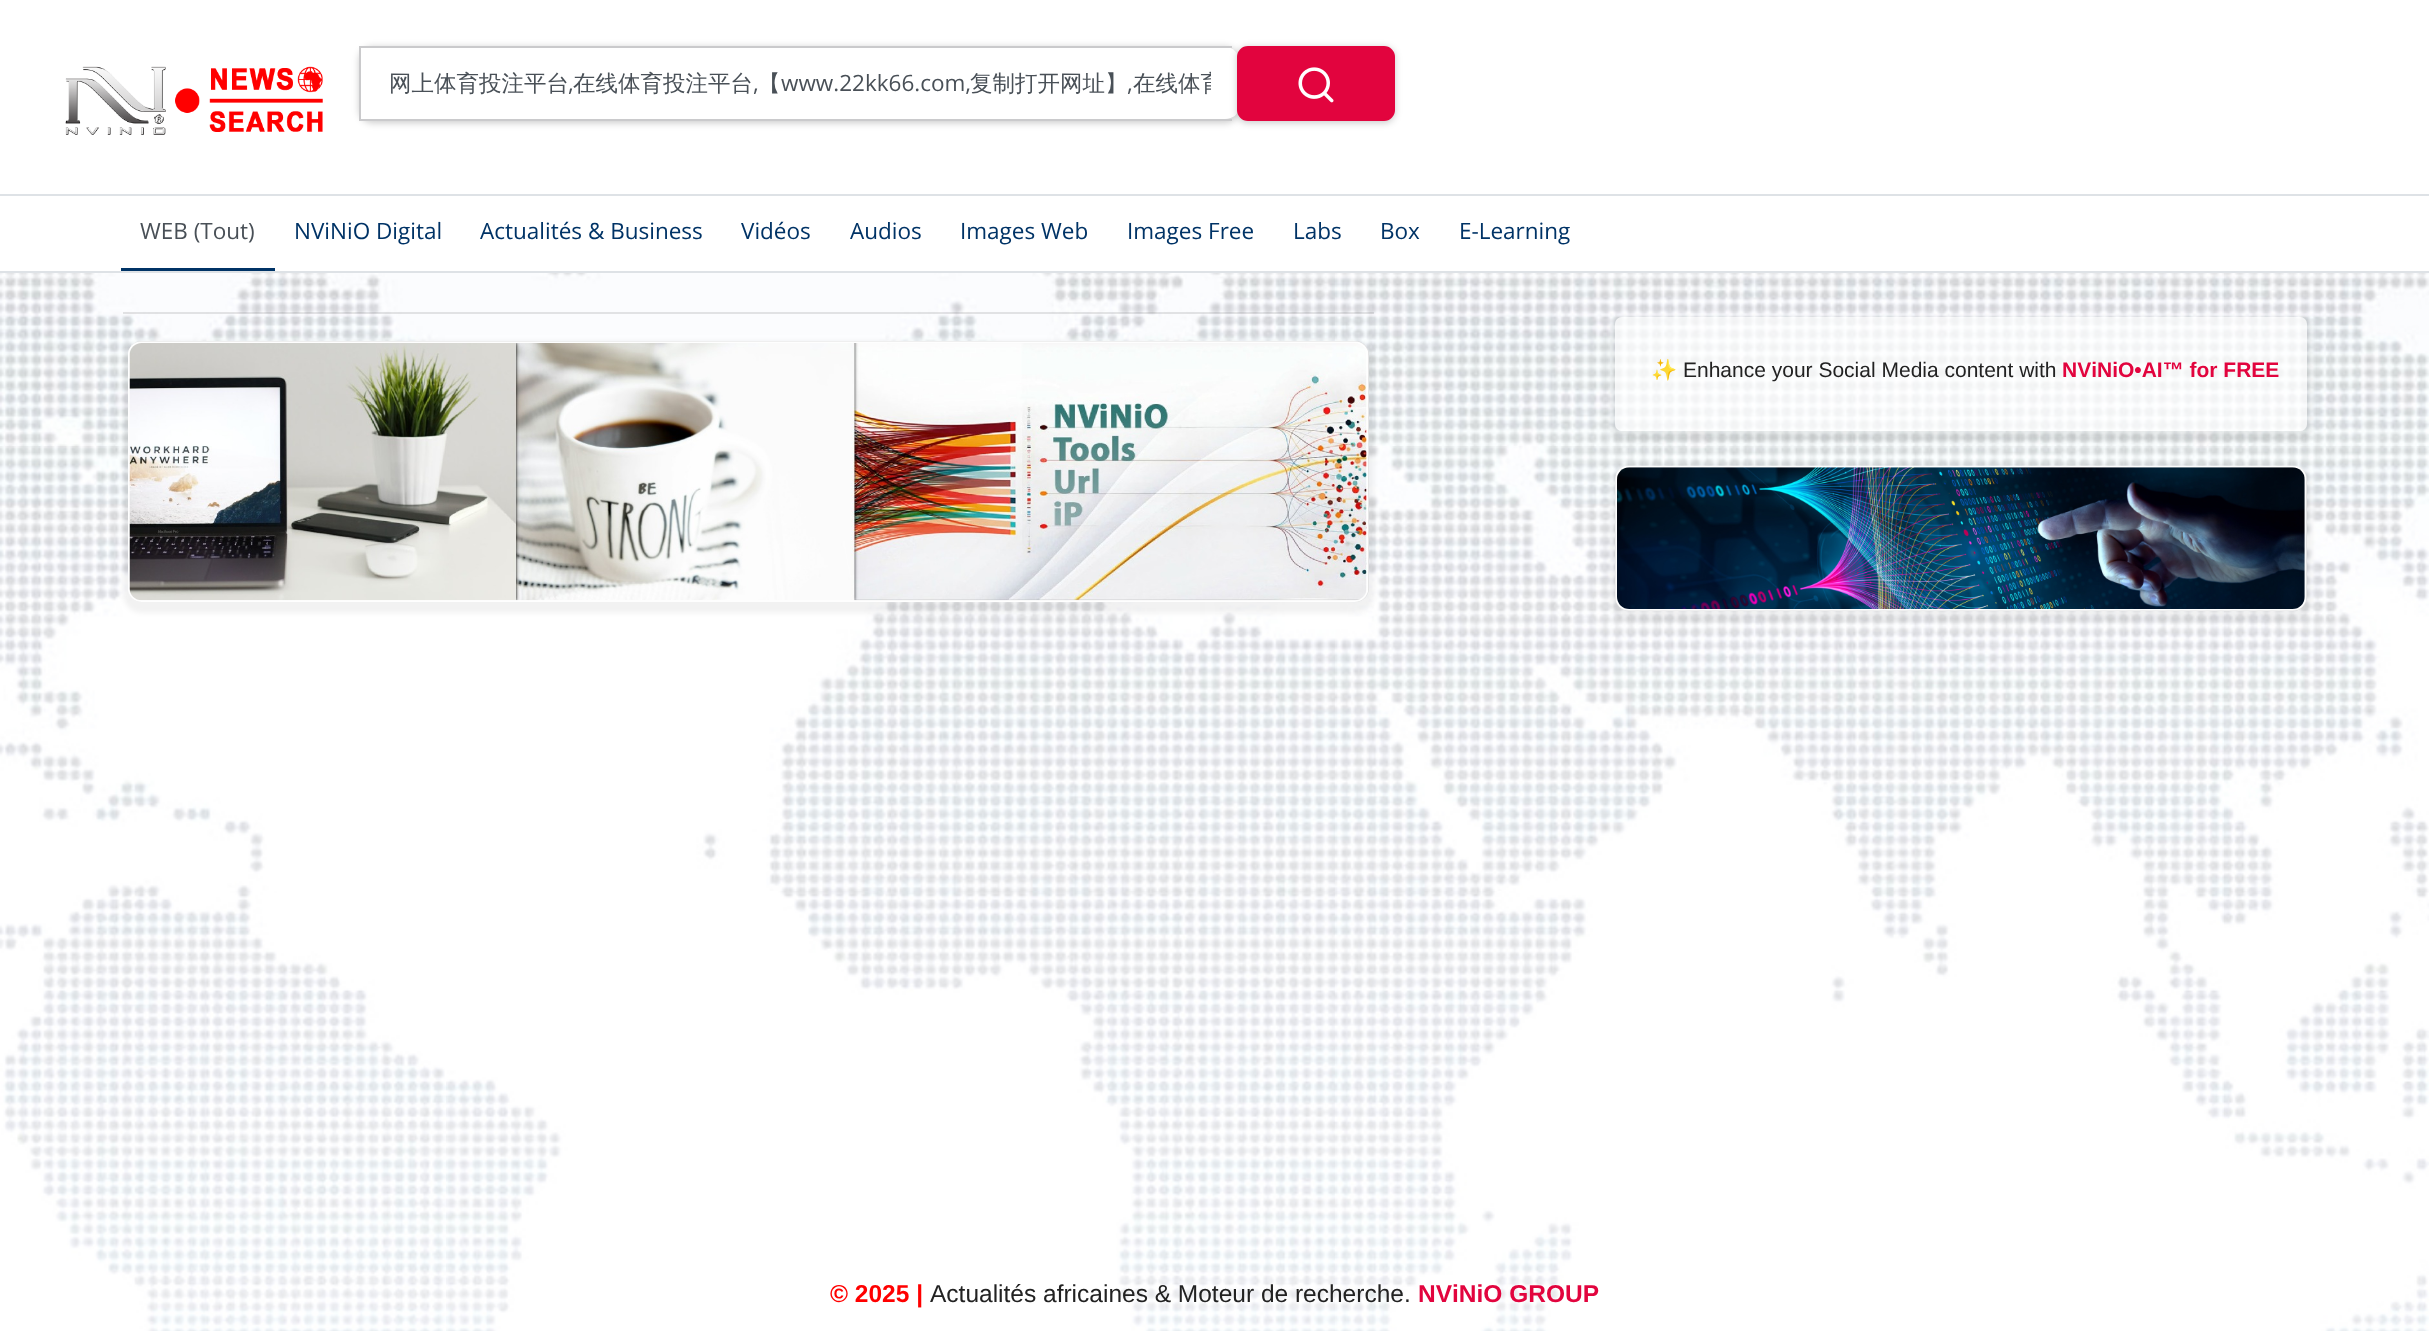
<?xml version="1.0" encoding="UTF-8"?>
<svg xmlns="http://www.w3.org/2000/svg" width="2429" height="1331">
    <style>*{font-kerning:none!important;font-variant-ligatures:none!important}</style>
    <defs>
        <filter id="blur1" x="-50%" y="-200%" width="200%" height="500%"><feGaussianBlur stdDeviation="3.5"/></filter>
        <clipPath id="clip1"><rect x="389" y="67" width="822" height="33"/></clipPath>
        <filter id="blur2" x="-50%" y="-200%" width="200%" height="500%"><feGaussianBlur stdDeviation="2.5"/></filter>
        <clipPath id="clip2"><path d="M 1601 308 H 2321 V 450 H 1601 Z M 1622 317 H 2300 C 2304 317 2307 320 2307 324 V 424 C 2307 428 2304 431 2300 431 H 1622 C 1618 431 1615 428 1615 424 V 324 C 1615 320 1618 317 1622 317 Z" clip-rule="evenodd"/></clipPath>
    </defs>
    <rect width="100%" height="100%" fill="#FFFFFF"/>
    <image x="0" y="273" width="2429" height="1058" href="img_01.png"/>
    <rect x="0" y="194" width="2429" height="2" fill="#DEE2E6"/>
    <image x="65" y="66" width="258" height="69" href="img_02.png"/>
    <rect x="359" y="47" width="880" height="76" rx="14" fill="#000000" fill-opacity="0.2" filter="url(#blur1)"/>
    <path d="M 360 47 H 1225 C 1233 47 1239 53 1239 60 V 107 C 1239 114 1233 119 1225 119 H 360 Z" fill="#FFFFFF"/>
    <rect x="359" y="46" width="873" height="2" fill="#CACACC"/>
    <rect x="359" y="119" width="873" height="2" fill="#CACACC"/>
    <rect x="359" y="46" width="2" height="75" fill="#CACACC"/>
    <text x="389" y="91" font-family="WenQuanYi Zen Hei" font-size="22.5" font-weight="500" fill="#495057">网上体育投注平台</text>
    <text x="568" y="91" font-family="Open Sans" font-size="22.5" fill="#495057">,</text>
    <text x="573" y="91" font-family="WenQuanYi Zen Hei" font-size="22.5" font-weight="500" fill="#495057">在线体育投注平台</text>
    <text x="753" y="91" font-family="Open Sans" font-size="22.5" fill="#495057">,</text>
    <text x="758" y="91" font-family="WenQuanYi Zen Hei" font-size="22.5" font-weight="500" fill="#495057">【</text>
    <text x="781" y="91" font-family="Open Sans" font-size="22.5" fill="#495057">www.22kk66.com,</text>
    <text x="970" y="91" font-family="WenQuanYi Zen Hei" font-size="22.5" font-weight="500" fill="#495057">复制打开网址】</text>
    <text x="1127" y="91" font-family="Open Sans" font-size="22.5" fill="#495057">,</text>
    <g clip-path="url(#clip1)">
        <text x="1133" y="91" font-family="WenQuanYi Zen Hei" font-size="22.5" font-weight="500" fill="#495057">在线体育</text>
    </g>
    <rect x="1237" y="47" width="158" height="76" rx="11" fill="#000000" fill-opacity="0.2" filter="url(#blur1)"/>
    <rect x="1238" y="47" width="156" height="73" rx="10" fill="#E2043E" stroke="#E2043E" stroke-width="2"/>
    <image x="1298" y="67" width="36" height="36" href="img_03.png"/>
    <rect x="0" y="271" width="2429" height="2" fill="#DEE2E6"/>
    <rect x="121" y="268" width="154" height="3" fill="#003366"/>
    <text x="140" y="239" font-family="Open Sans" font-size="22.5" fill="#495057">WEB (Tout)</text>
    <text x="294" y="239" font-family="Open Sans" font-size="22.5" fill="#003366">NViNiO Digital</text>
    <text x="480" y="239" font-family="Open Sans" font-size="22.5" fill="#003366">Actualités &amp; Business</text>
    <text x="741" y="239" font-family="Open Sans" font-size="22.5" fill="#003366">Vidéos</text>
    <text x="850" y="239" font-family="Open Sans" font-size="22.5" fill="#003366">Audios</text>
    <text x="960" y="239" font-family="Open Sans" font-size="22.5" fill="#003366">Images Web</text>
    <text x="1127" y="239" font-family="Open Sans" font-size="22.5" fill="#003366">Images Free</text>
    <text x="1293" y="239" font-family="Open Sans" font-size="22.5" fill="#003366">Labs</text>
    <text x="1380" y="239" font-family="Open Sans" font-size="22.5" fill="#003366">Box</text>
    <text x="1459" y="239" font-family="Open Sans" font-size="22.5" fill="#003366">E-Learning</text>
    <rect x="123" y="312" width="1251" height="2" fill="#000000" fill-opacity="0.1"/>
    <rect x="123" y="341" width="1251" height="272" rx="19" fill="#000000" fill-opacity="0.05" filter="url(#blur2)"/>
    <rect x="129" y="342" width="1239" height="259" rx="13" fill="none" stroke="#DDDDDD" stroke-width="2"/>
    <image x="128" y="341" width="1241" height="261" href="img_04.png"/>
    <g clip-path="url(#clip2)">
        <rect x="1610" y="317" width="702" height="124" rx="12" fill="#000000" fill-opacity="0.07" filter="url(#blur2)"/>
    </g>
    <rect x="1615" y="317" width="692" height="114" rx="7" fill="#FFFFFF" fill-opacity="0.7"/>
    <text x="1651" y="377" font-family="Noto Color Emoji" font-size="21" font-weight="700" fill="#FF0000">✨</text>
    <text x="1683" y="377" font-family="Liberation Sans" font-size="21" fill="#222222">Enhance your Social Media content with</text>
    <text x="2062" y="377" font-family="Liberation Sans" font-size="21" font-weight="700" fill="#E2043E">NViNiO•AI™ for FREE</text>
    <rect x="1610" y="466" width="702" height="155" rx="19" fill="#000000" fill-opacity="0.05" filter="url(#blur2)"/>
    <rect x="1616" y="467" width="690" height="143" rx="13" fill="none" stroke="#DDDDDD" stroke-width="2"/>
    <image x="1615" y="465" width="692" height="146" href="img_05.png"/>
    <text x="830" y="1302" font-family="Liberation Sans" font-size="24.5" font-weight="700" fill="#FF0000">© 2025 |</text>
    <text x="930" y="1302" font-family="Liberation Sans" font-size="24.5" fill="#222222">Actualités africaines &amp; Moteur de recherche.</text>
    <text x="1418" y="1302" font-family="Liberation Sans" font-size="24.5" font-weight="700" fill="#E2043E">NViNiO GROUP</text>
</svg>
